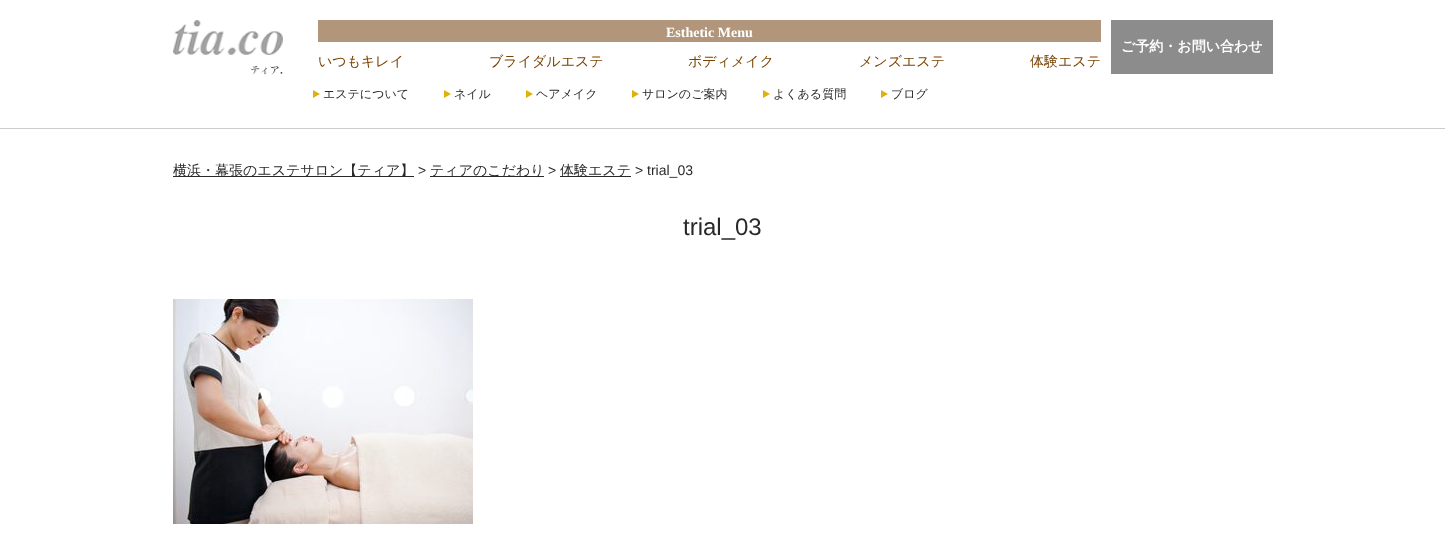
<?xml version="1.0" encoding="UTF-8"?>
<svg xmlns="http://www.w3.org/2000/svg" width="1445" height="540">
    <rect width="100%" height="100%" fill="#FFFFFF"/>
    <rect x="0" y="128" width="1445" height="1" fill="#CCCCCC"/>
    <image x="173" y="20" width="110" height="55" href="img_01.png"/>
    <rect x="318" y="20" width="783" height="22" fill="#B2967B"/>
    <text x="666" y="37" font-family="Liberation Serif" font-size="14" font-weight="700" fill="#FFFFFF">Esthetic Menu</text>
    <text x="318" y="66" font-family="WenQuanYi Zen Hei" font-size="14" font-weight="500" fill="#794303">いつもキレイ</text>
    <text x="489" y="66" font-family="WenQuanYi Zen Hei" font-size="14" font-weight="500" fill="#794303">ブライダルエステ</text>
    <text x="688" y="66" font-family="WenQuanYi Zen Hei" font-size="14" font-weight="500" fill="#794303">ボディメイク</text>
    <text x="859" y="66" font-family="WenQuanYi Zen Hei" font-size="14" font-weight="500" fill="#794303">メンズエステ</text>
    <text x="1030" y="66" font-family="WenQuanYi Zen Hei" font-size="14" font-weight="500" fill="#794303">体験エステ</text>
    <rect x="1111" y="20" width="162" height="54" fill="#8C8C8C"/>
    <text x="1121" y="51" font-family="WenQuanYi Zen Hei" font-size="14" font-weight="700" fill="#FFFFFF">ご予約・お問い合わせ</text>
    <path d="M 313 98 V 90 L 320 94 Z" fill="#DDB30B"/>
    <text x="323" y="98" font-family="WenQuanYi Zen Hei" font-size="12" font-weight="500" fill="#292929">エステについて</text>
    <path d="M 444 98 V 90 L 451 94 Z" fill="#DDB30B"/>
    <text x="454" y="98" font-family="WenQuanYi Zen Hei" font-size="12" font-weight="500" fill="#292929">ネイル</text>
    <path d="M 526 98 V 90 L 533 94 Z" fill="#DDB30B"/>
    <text x="536" y="98" font-family="WenQuanYi Zen Hei" font-size="12" font-weight="500" fill="#292929">ヘアメイク</text>
    <path d="M 632 98 V 90 L 639 94 Z" fill="#DDB30B"/>
    <text x="642" y="98" font-family="WenQuanYi Zen Hei" font-size="12" font-weight="500" fill="#292929">サロンのご案内</text>
    <path d="M 763 98 V 90 L 770 94 Z" fill="#DDB30B"/>
    <text x="773" y="98" font-family="WenQuanYi Zen Hei" font-size="12" font-weight="500" fill="#292929">よくある質問</text>
    <path d="M 881 98 V 90 L 888 94 Z" fill="#DDB30B"/>
    <text x="891" y="98" font-family="WenQuanYi Zen Hei" font-size="12" font-weight="500" fill="#292929">ブログ</text>
    <rect x="173" y="176" width="241" height="1" fill="#292929"/>
    <text x="173" y="175" font-family="WenQuanYi Zen Hei" font-size="14" font-weight="500" fill="#292929">横浜・幕張のエステサロン【ティア】</text>
    <text x="418" y="175" font-family="Liberation Sans" font-size="14" fill="#292929">&gt;</text>
    <rect x="430" y="176" width="114" height="1" fill="#292929"/>
    <text x="430" y="175" font-family="WenQuanYi Zen Hei" font-size="14" font-weight="500" fill="#292929">ティアのこだわり</text>
    <text x="548" y="175" font-family="Liberation Sans" font-size="14" fill="#292929">&gt;</text>
    <rect x="560" y="176" width="71" height="1" fill="#292929"/>
    <text x="560" y="175" font-family="WenQuanYi Zen Hei" font-size="14" font-weight="500" fill="#292929">体験エステ</text>
    <text x="635" y="175" font-family="Liberation Sans" font-size="14" fill="#292929">&gt; trial_03</text>
    <text x="683" y="235" font-family="Liberation Sans" font-size="24" fill="#292929">trial_03</text>
    <image x="173" y="299" width="300" height="225" href="img_02.png"/>
</svg>
